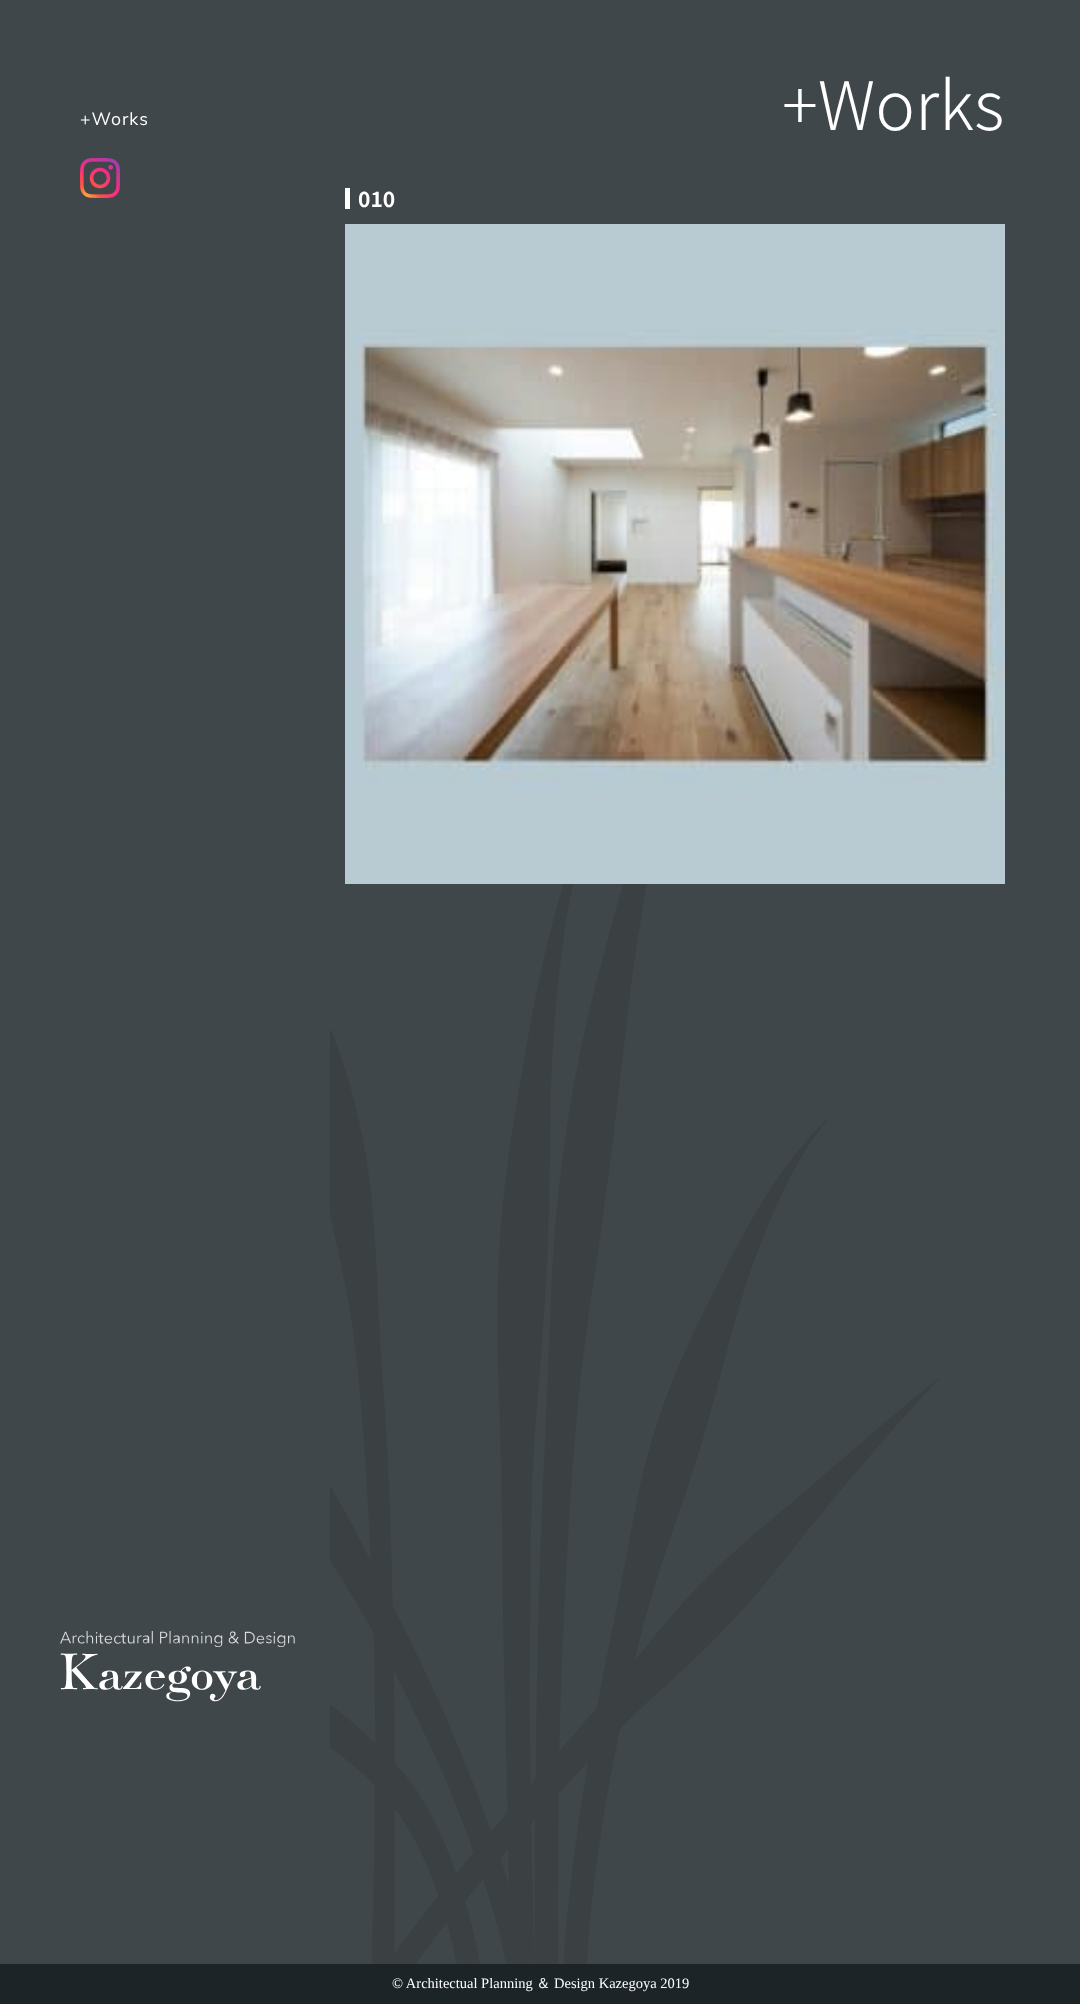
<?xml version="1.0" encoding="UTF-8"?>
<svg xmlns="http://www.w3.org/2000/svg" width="1080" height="2004">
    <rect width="100%" height="100%" fill="#40474A"/>
    <text x="80" y="125" font-family="Muli" font-size="17.5" letter-spacing="1" fill="#FFFFFF">+Works</text>
    <image x="80" y="158" width="40" height="40" href="img_01.png"/>
    <image x="60" y="1631" width="235" height="71" href="img_02.png"/>
    <image x="330" y="884" width="609" height="1080" href="img_03.png"/>
    <text x="782" y="130" font-family="Noto Sans JP" font-size="67" font-weight="300" fill="#FFFFFF">+Works</text>
    <rect x="345" y="188" width="5" height="21" fill="#FFFFFF"/>
    <text x="358" y="207" font-family="Noto Sans JP" font-size="21" font-weight="700" fill="#FFFFFF">010</text>
    <image x="345" y="224" width="660" height="660" href="img_04.png"/>
    <rect x="0" y="1964" width="1080" height="40" fill="#1C2427"/>
    <text x="392" y="1988" font-family="Liberation Serif" font-size="14.5" fill="#FFFFFF">© Architectual Planning</text>
    <text x="536" y="1988" font-family="WenQuanYi Zen Hei" font-size="14.5" font-weight="500" fill="#FFFFFF">＆</text>
    <text x="554" y="1988" font-family="Liberation Serif" font-size="14.5" fill="#FFFFFF">Design Kazegoya 2019</text>
</svg>
